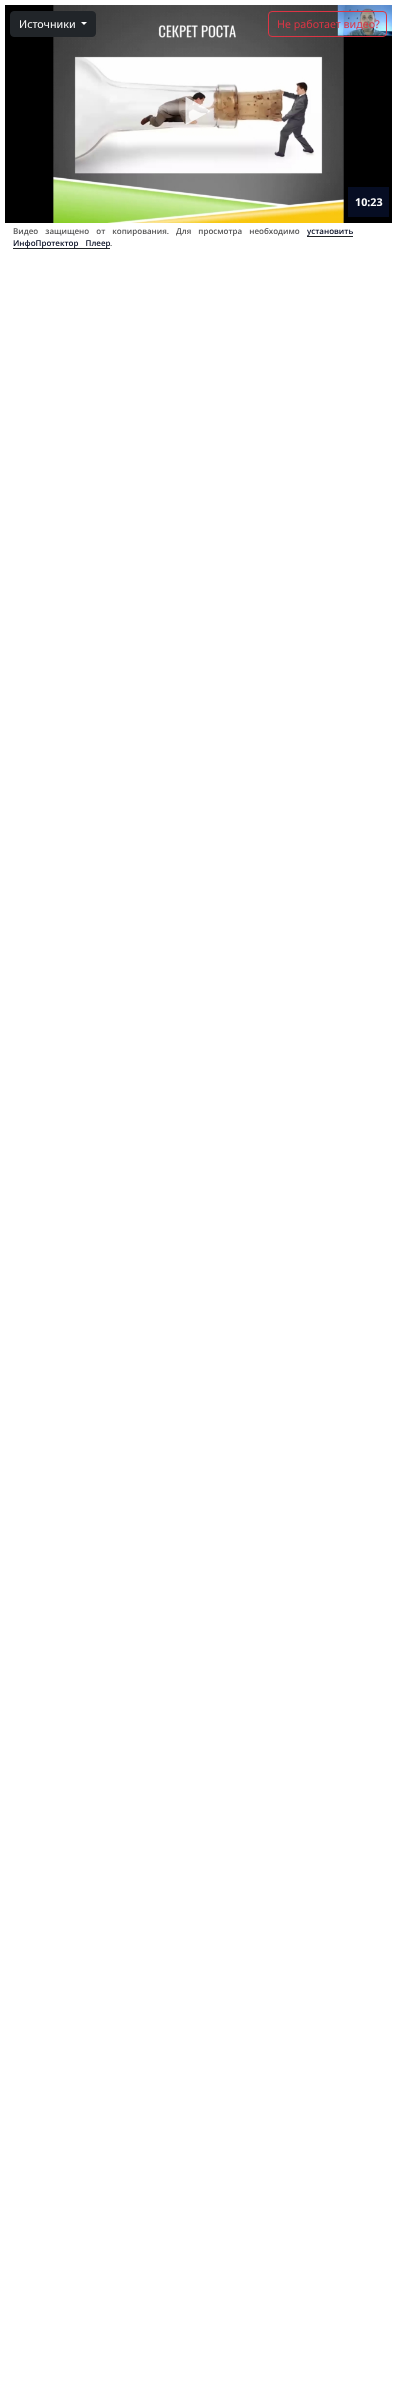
<?xml version="1.0" encoding="UTF-8"?>
<svg xmlns="http://www.w3.org/2000/svg" width="397" height="2407">
    <rect width="100%" height="100%" fill="#FFFFFF"/>
    <image x="5" y="5" width="387" height="218" href="img_01.png"/>
    <path d="M 210 111.5 L 190.5 122.5 C 190 122.5 186.5 125.5 185.5 124.5 V 97.5 L 186 97 L 206 108 L 210.5 111 Z" fill="#FFFFFF" fill-opacity="0.8"/>
    <rect x="10.5" y="11.5" width="85" height="25" rx="3.5" fill="#212529" stroke="#212529"/>
    <text x="19" y="28" font-family="Noto Sans" font-size="10.75" fill="#FFFFFF">Источники</text>
    <path d="M 81 22 H 87 L 84 25 Z" fill="#FFFFFF"/>
    <rect x="268.5" y="11.5" width="118" height="25" rx="3.5" fill="none" stroke="#DC3545"/>
    <text x="277" y="28" font-family="Noto Sans" font-size="10.75" fill="#DC3545">Не работает видео?</text>
    <rect x="348" y="187" width="41" height="30" fill="#060D23"/>
    <text x="355" y="206" font-family="Noto Sans" font-size="10.75" font-weight="700" fill="#FFFFFF">10:23</text>
    <text x="13" y="234" word-spacing="5" font-family="Open Sans" font-size="8" font-weight="600" fill="#555556">Видео защищено от копирования. Для просмотра необходимо</text>
    <text x="307" y="234" font-family="Open Sans" font-size="8" font-weight="600" fill="#060D23">установить</text>
    <rect x="307" y="236" width="46" height="1" fill="#212529"/>
    <text x="13" y="246" word-spacing="5" font-family="Open Sans" font-size="8" font-weight="600" fill="#060D23">ИнфоПротектор Плеер</text>
    <rect x="13" y="248" width="97" height="1" fill="#212529"/>
    <text x="110" y="246" font-family="Open Sans" font-size="8" font-weight="600" fill="#555556">.</text>
</svg>
